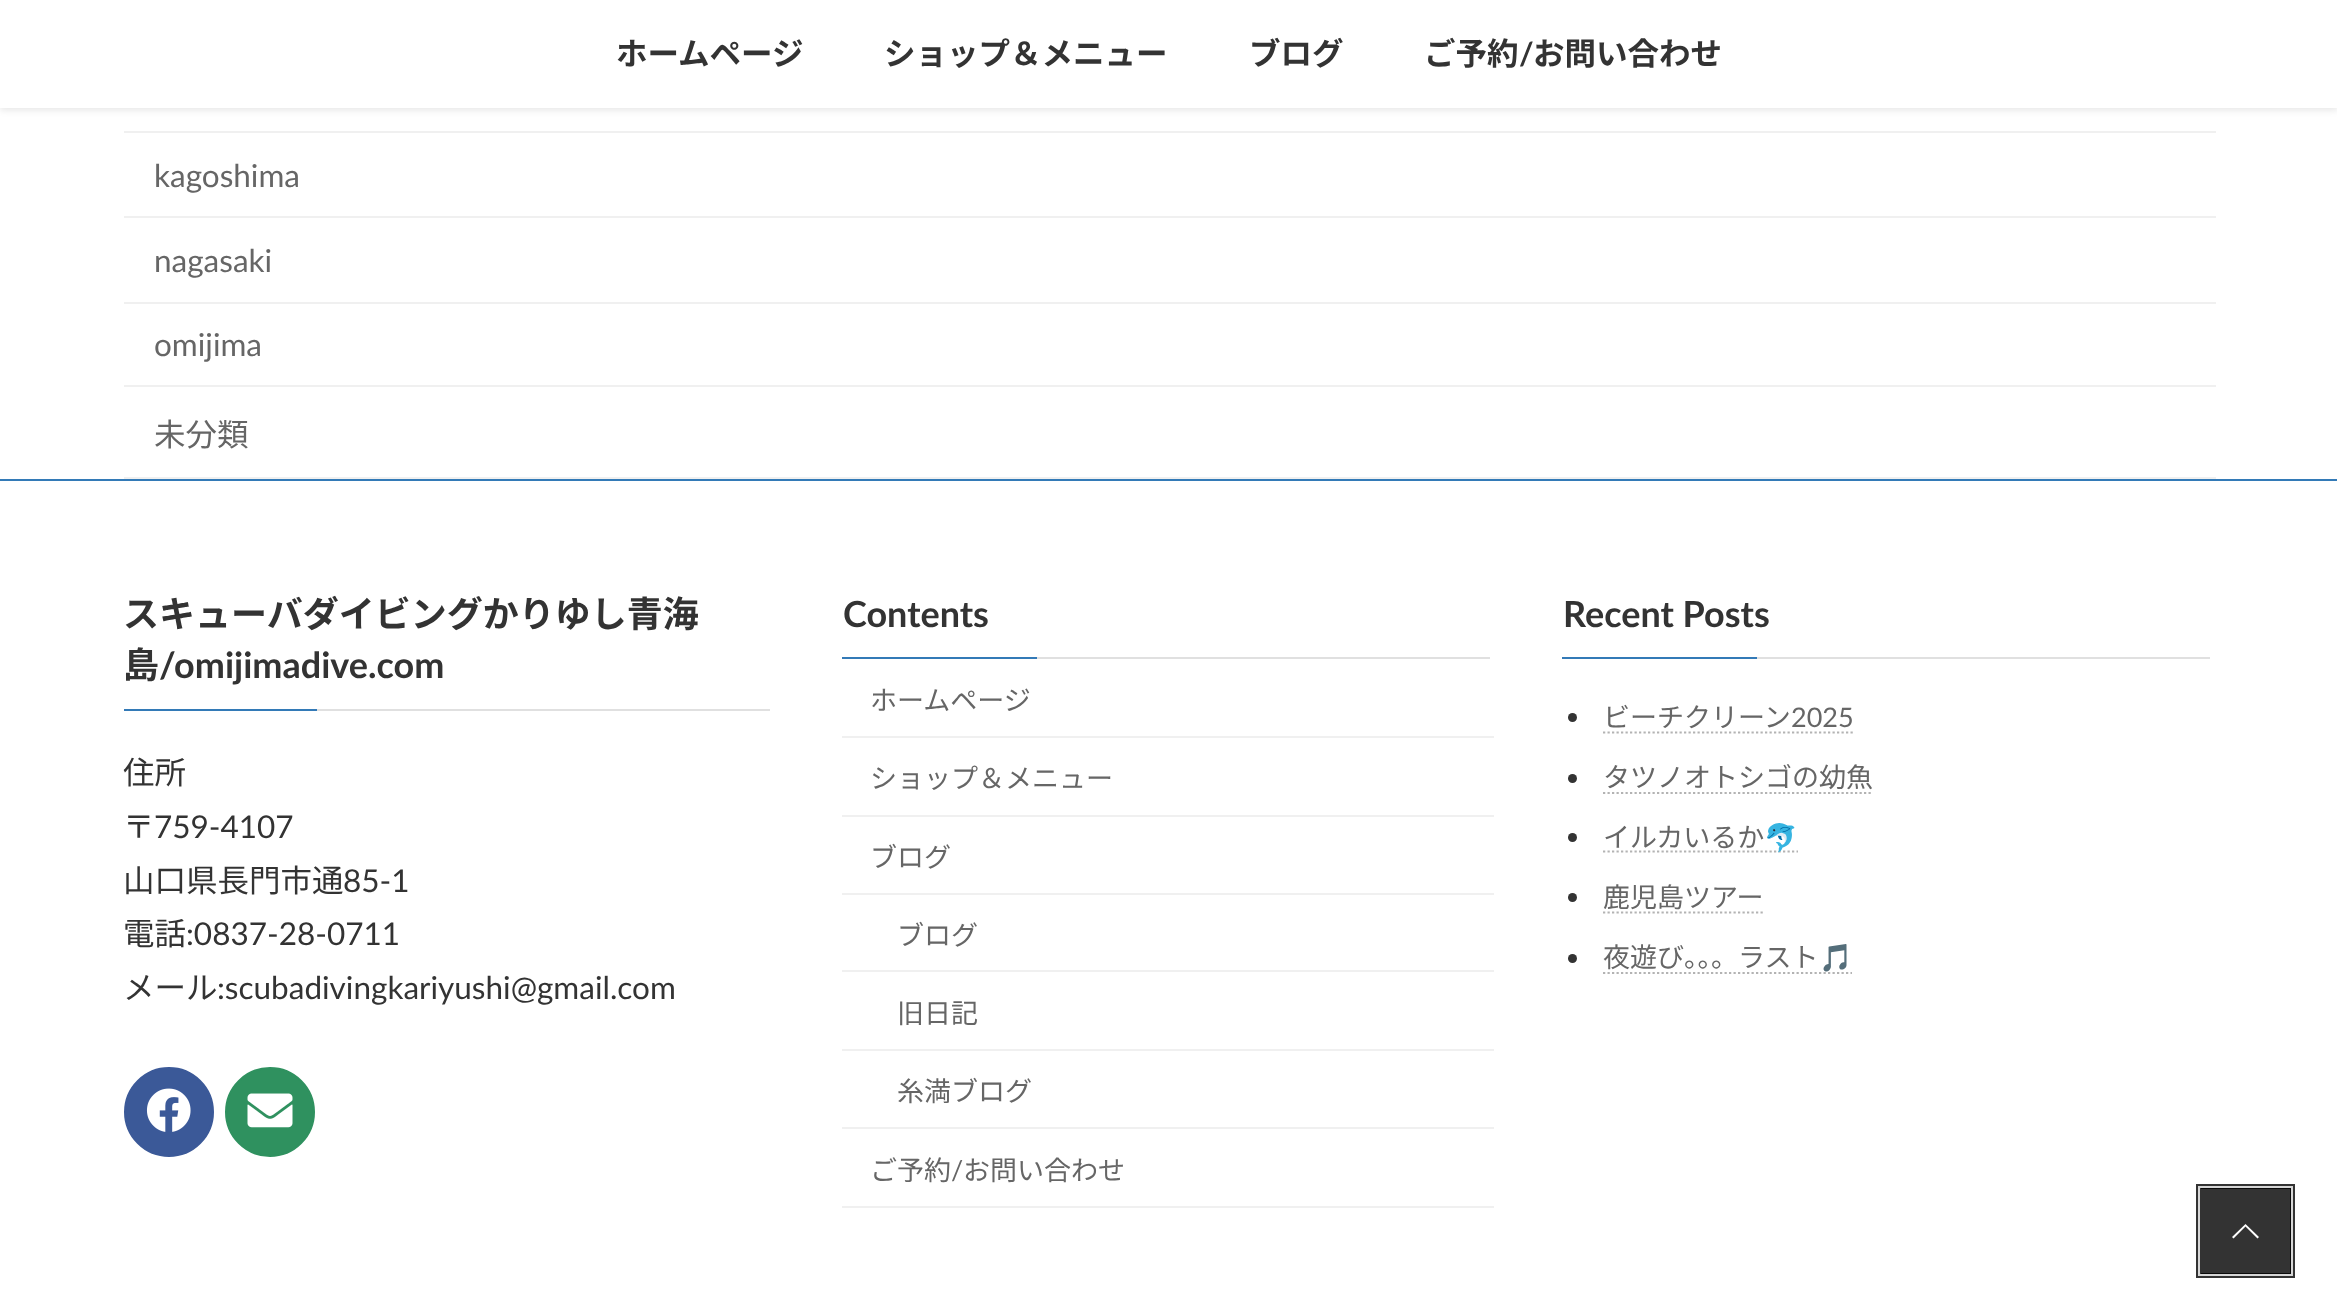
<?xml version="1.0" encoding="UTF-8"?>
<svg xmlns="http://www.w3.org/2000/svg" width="2337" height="1313">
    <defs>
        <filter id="blur1" x="-50%" y="-200%" width="200%" height="500%"><feGaussianBlur stdDeviation="3.5"/></filter>
    </defs>
    <rect width="100%" height="100%" fill="#FFFFFF"/>
    <rect x="0" y="2" width="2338" height="108" fill="#000000" fill-opacity="0.1" filter="url(#blur1)"/>
    <rect x="0" y="0" width="2337" height="108" fill="#FFFFFF"/>
    <text x="616" y="65" font-family="Noto Sans JP" font-size="31.5" font-weight="700" fill="#333333">ホームページ</text>
    <text x="884" y="65" font-family="Noto Sans JP" font-size="31.5" font-weight="700" fill="#333333">ショップ＆メニュー</text>
    <text x="1249" y="65" font-family="Noto Sans JP" font-size="31.5" font-weight="700" fill="#333333">ブログ</text>
    <text x="1424" y="65" font-family="Noto Sans JP" font-size="31.5" font-weight="700" fill="#333333">ご予約</text>
    <text x="1519" y="65" font-family="Lato" font-size="31.5" font-weight="700" fill="#333333">/</text>
    <text x="1533" y="65" font-family="Noto Sans JP" font-size="31.5" font-weight="700" fill="#333333">お問い合わせ</text>
    <rect x="124" y="131" width="2092" height="2" fill="#F0F0F0"/>
    <rect x="124" y="216" width="2092" height="2" fill="#F0F0F0"/>
    <text x="154" y="187" font-family="Lato" font-size="31.5" fill="#666666">kagoshima</text>
    <rect x="124" y="302" width="2092" height="2" fill="#F0F0F0"/>
    <text x="154" y="272" font-family="Lato" font-size="31.5" fill="#666666">nagasaki</text>
    <rect x="124" y="385" width="2092" height="2" fill="#F0F0F0"/>
    <text x="154" y="356" font-family="Lato" font-size="31.5" fill="#666666">omijima</text>
    <rect x="124" y="477" width="2092" height="2" fill="#F0F0F0"/>
    <text x="154" y="446" font-family="Noto Sans JP" font-size="31.5" fill="#666666">未分類</text>
    <rect x="0" y="479" width="2337" height="2" fill="#337AB7"/>
    <rect x="317" y="709" width="453" height="2" fill="#E0E0E0"/>
    <text font-family="Noto Sans JP" font-size="36" font-weight="700" fill="#333333">
        <tspan x="123" y="627">スキューバダイビングかりゆし青海</tspan>
        <tspan x="123" y="678">島</tspan>
    </text>
    <text x="159" y="678" font-family="Lato" font-size="36" font-weight="700" fill="#333333">/omijimadive.com</text>
    <rect x="124" y="709" width="193" height="2" fill="#337AB7"/>
    <text font-family="Noto Sans JP" font-size="31.5" fill="#333333">
        <tspan x="123" y="784">住所</tspan>
        <tspan x="123" y="838">〒</tspan>
    </text>
    <text x="154" y="838" font-family="Lato" font-size="31.5" fill="#333333">759-4107</text>
    <text x="123" y="892" font-family="Noto Sans JP" font-size="31.5" fill="#333333">山口県長門市通</text>
    <text x="343" y="892" font-family="Lato" font-size="31.5" fill="#333333">85-1</text>
    <text x="123" y="945" font-family="Noto Sans JP" font-size="31.5" fill="#333333">電話</text>
    <text x="186" y="945" font-family="Lato" font-size="31.5" fill="#333333">:0837-28-0711</text>
    <text x="123" y="999" font-family="Noto Sans JP" font-size="31.5" fill="#333333">メール</text>
    <text x="217" y="999" font-family="Lato" font-size="31.5" fill="#333333">:scubadivingkariyushi@gmail.com</text>
    <circle cx="169" cy="1112" r="44" fill="#3B5998" stroke="#3B5998" stroke-width="2"/>
    <image x="146" y="1088" width="45" height="44" href="img_01.png"/>
    <circle cx="270" cy="1112" r="44" fill="#2F915F" stroke="#2F915F" stroke-width="2"/>
    <image x="247" y="1093" width="46" height="35" href="img_02.png"/>
    <rect x="1037" y="657" width="453" height="2" fill="#E0E0E0"/>
    <text x="843" y="627" font-family="Lato" font-size="36" font-weight="700" fill="#333333">Contents</text>
    <rect x="842" y="657" width="195" height="2" fill="#337AB7"/>
    <rect x="842" y="736" width="652" height="2" fill="#F0F0F0"/>
    <text x="870" y="710" font-family="Noto Sans JP" font-size="27" fill="#666666">ホームページ</text>
    <rect x="842" y="815" width="652" height="2" fill="#F0F0F0"/>
    <text x="870" y="788" font-family="Noto Sans JP" font-size="27" fill="#666666">ショップ＆メニュー</text>
    <rect x="842" y="893" width="652" height="2" fill="#F0F0F0"/>
    <text x="870" y="867" font-family="Noto Sans JP" font-size="27" fill="#666666">ブログ</text>
    <rect x="842" y="970" width="652" height="2" fill="#F0F0F0"/>
    <text x="897" y="945" font-family="Noto Sans JP" font-size="27" fill="#666666">ブログ</text>
    <rect x="842" y="1049" width="652" height="2" fill="#F0F0F0"/>
    <text x="897" y="1023" font-family="Noto Sans JP" font-size="27" fill="#666666">旧日記</text>
    <rect x="842" y="1127" width="652" height="2" fill="#F0F0F0"/>
    <text x="897" y="1101" font-family="Noto Sans JP" font-size="27" fill="#666666">糸満ブログ</text>
    <rect x="842" y="1206" width="652" height="2" fill="#F0F0F0"/>
    <text x="870" y="1180" font-family="Noto Sans JP" font-size="27" fill="#666666">ご予約</text>
    <text x="951" y="1180" font-family="Lato" font-size="27" fill="#666666">/</text>
    <text x="963" y="1180" font-family="Noto Sans JP" font-size="27" fill="#666666">お問い合わせ</text>
    <rect x="1757" y="657" width="453" height="2" fill="#E0E0E0"/>
    <text x="1563" y="627" font-family="Lato" font-size="36" font-weight="700" fill="#333333">Recent Posts</text>
    <rect x="1562" y="657" width="195" height="2" fill="#337AB7"/>
    <circle cx="1572.5" cy="717.5" r="4.5" fill="#333333"/>
    <text x="1603" y="727" font-family="Noto Sans JP" font-size="27" fill="#666666">ビーチクリーン</text>
    <text x="1791" y="727" font-family="Lato" font-size="27" fill="#666666">2025</text>
    <path d="M 1603 732.5 H 1853.5" fill="none" stroke="#B3B3B3" stroke-width="2.2" stroke-dasharray="2.25 2.25"/>
    <circle cx="1572.5" cy="778.5" r="4.5" fill="#333333"/>
    <text x="1603" y="787" font-family="Noto Sans JP" font-size="27" fill="#666666">タツノオトシゴの幼魚</text>
    <path d="M 1603 793 H 1873" fill="none" stroke="#B3B3B3" stroke-width="2.2" stroke-dasharray="2.25 2.25"/>
    <circle cx="1572.5" cy="837.5" r="4.5" fill="#333333"/>
    <text x="1603" y="847" font-family="Noto Sans JP" font-size="27" fill="#666666">イルカいるか</text>
    <path d="M 1603 851.5 H 1798" fill="none" stroke="#B3B3B3" stroke-width="2.2" stroke-dasharray="2.25 2.25"/>
    <text x="1764" y="847" font-family="Noto Color Emoji" font-size="27" fill="#666666">🐬</text>
    <circle cx="1572.5" cy="897.5" r="4.5" fill="#333333"/>
    <text x="1603" y="907" font-family="Noto Sans JP" font-size="27" fill="#666666">鹿児島ツアー</text>
    <path d="M 1603 912.5 H 1763.5" fill="none" stroke="#B3B3B3" stroke-width="2.2" stroke-dasharray="2.25 2.25"/>
    <circle cx="1572.5" cy="958.5" r="4.5" fill="#333333"/>
    <text x="1603" y="967" font-family="Noto Sans JP" font-size="27" fill="#666666">夜遊び。。。ラスト</text>
    <path d="M 1603 973 H 1852" fill="none" stroke="#B3B3B3" stroke-width="2.2" stroke-dasharray="2.25 2.25"/>
    <text x="1819" y="967" font-family="Noto Color Emoji" font-size="27" fill="#666666">🎵</text>
    <rect x="2198.5" y="1186.5" width="94" height="89" fill="none" stroke="#333333" stroke-width="5"/>
    <rect x="2199" y="1187" width="93" height="88" fill="none" stroke="#D6D6D6" stroke-width="2"/>
    <rect x="2201" y="1188" width="90" height="86" fill="#000000" fill-opacity="0.8"/>
    <path d="M 2259 1237 L 2257.5 1238.5 L 2245.5 1226.5 L 2233.5 1238.5 L 2232 1237 L 2245.5 1224 Z" fill="#FFFFFF"/>
</svg>
